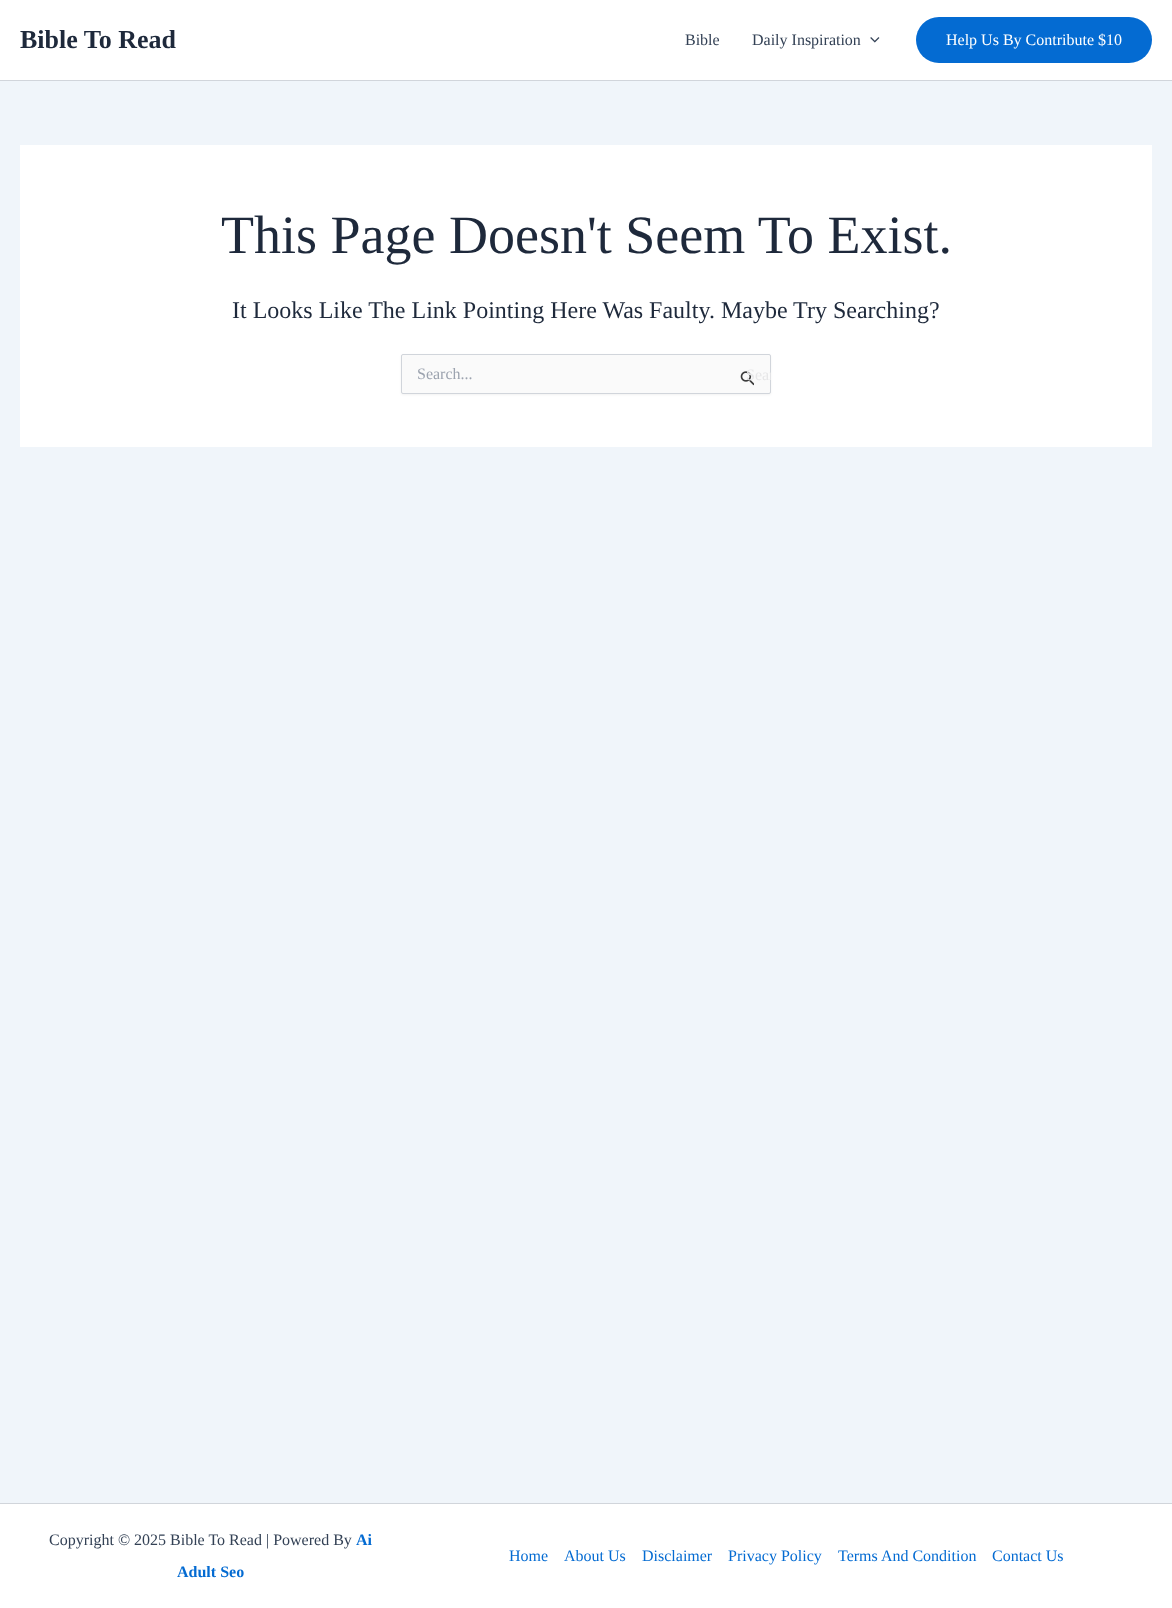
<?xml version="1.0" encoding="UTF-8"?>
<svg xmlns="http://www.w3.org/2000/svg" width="1172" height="1608">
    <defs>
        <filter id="blur1" x="-50%" y="-200%" width="200%" height="500%"><feGaussianBlur stdDeviation="1"/></filter>
        <clipPath id="clip1"><rect x="726" y="354" width="45" height="42" rx="2"/></clipPath>
    </defs>
    <rect width="100%" height="100%" fill="#F0F5FA"/>
    <rect x="0" y="0" width="1172" height="80" fill="#FFFFFF"/>
    <rect x="0" y="80" width="1172" height="1" fill="#D1D5DB"/>
    <text x="20" y="48" font-family="Liberation Serif" font-size="26" font-weight="700" fill="#1E293B">Bible To Read</text>
    <text x="685" y="45" font-family="Liberation Serif" font-size="16" fill="#334155">Bible</text>
    <text x="752" y="45" font-family="Liberation Serif" font-size="16" fill="#334155">Daily Inspiration</text>
    <image x="870" y="37" width="10" height="6" href="img_01.png"/>
    <rect x="916" y="17" width="236" height="46" rx="23" fill="#046BD2"/>
    <text x="946" y="45" font-family="Liberation Serif" font-size="16" fill="#FFFFFF">Help Us By Contribute $10</text>
    <rect x="20" y="145" width="1132" height="302" fill="#FFFFFF"/>
    <text x="221" y="253" font-family="Liberation Serif" font-size="54" fill="#1E293B">This Page Doesn't Seem To Exist.</text>
    <text x="232" y="318" font-family="Liberation Serif" font-size="24" fill="#1E293B">It Looks Like The Link Pointing Here Was Faulty. Maybe Try Searching?</text>
    <rect x="401" y="355" width="370" height="40" rx="2" fill="#000000" fill-opacity="0.05" filter="url(#blur1)"/>
    <rect x="401.5" y="354.5" width="369" height="39" rx="1.5" fill="#FAFAFA" stroke="#D1D5DB"/>
    <text x="417" y="379" font-family="Liberation Serif" font-size="16" fill="#9CA3AF">Search...</text>
    <image x="740" y="371" width="14" height="15" href="img_02.png"/>
    <g clip-path="url(#clip1)">
        <text x="746" y="380" font-family="Liberation Serif" font-size="16" fill="#E7E7E8">Sear</text>
    </g>
    <rect x="0" y="1504" width="1172" height="104" fill="#FFFFFF"/>
    <rect x="0" y="1503" width="1172" height="1" fill="#D1D5DB"/>
    <text x="49" y="1545" font-family="Liberation Serif" font-size="16" fill="#334155">Copyright © 2025 Bible To Read | Powered By</text>
    <text x="356" y="1545" font-family="Liberation Serif" font-size="16" font-weight="700" fill="#046BD2">Ai</text>
    <text x="177" y="1577" font-family="Liberation Serif" font-size="16" font-weight="700" fill="#046BD2">Adult Seo</text>
    <text x="509" y="1561" font-family="Liberation Serif" font-size="16" fill="#046BD2">Home</text>
    <text x="564" y="1561" font-family="Liberation Serif" font-size="16" fill="#046BD2">About Us</text>
    <text x="642" y="1561" font-family="Liberation Serif" font-size="16" fill="#046BD2">Disclaimer</text>
    <text x="728" y="1561" font-family="Liberation Serif" font-size="16" fill="#046BD2">Privacy Policy</text>
    <text x="838" y="1561" font-family="Liberation Serif" font-size="16" fill="#046BD2">Terms And Condition</text>
    <text x="992" y="1561" font-family="Liberation Serif" font-size="16" fill="#046BD2">Contact Us</text>
</svg>
